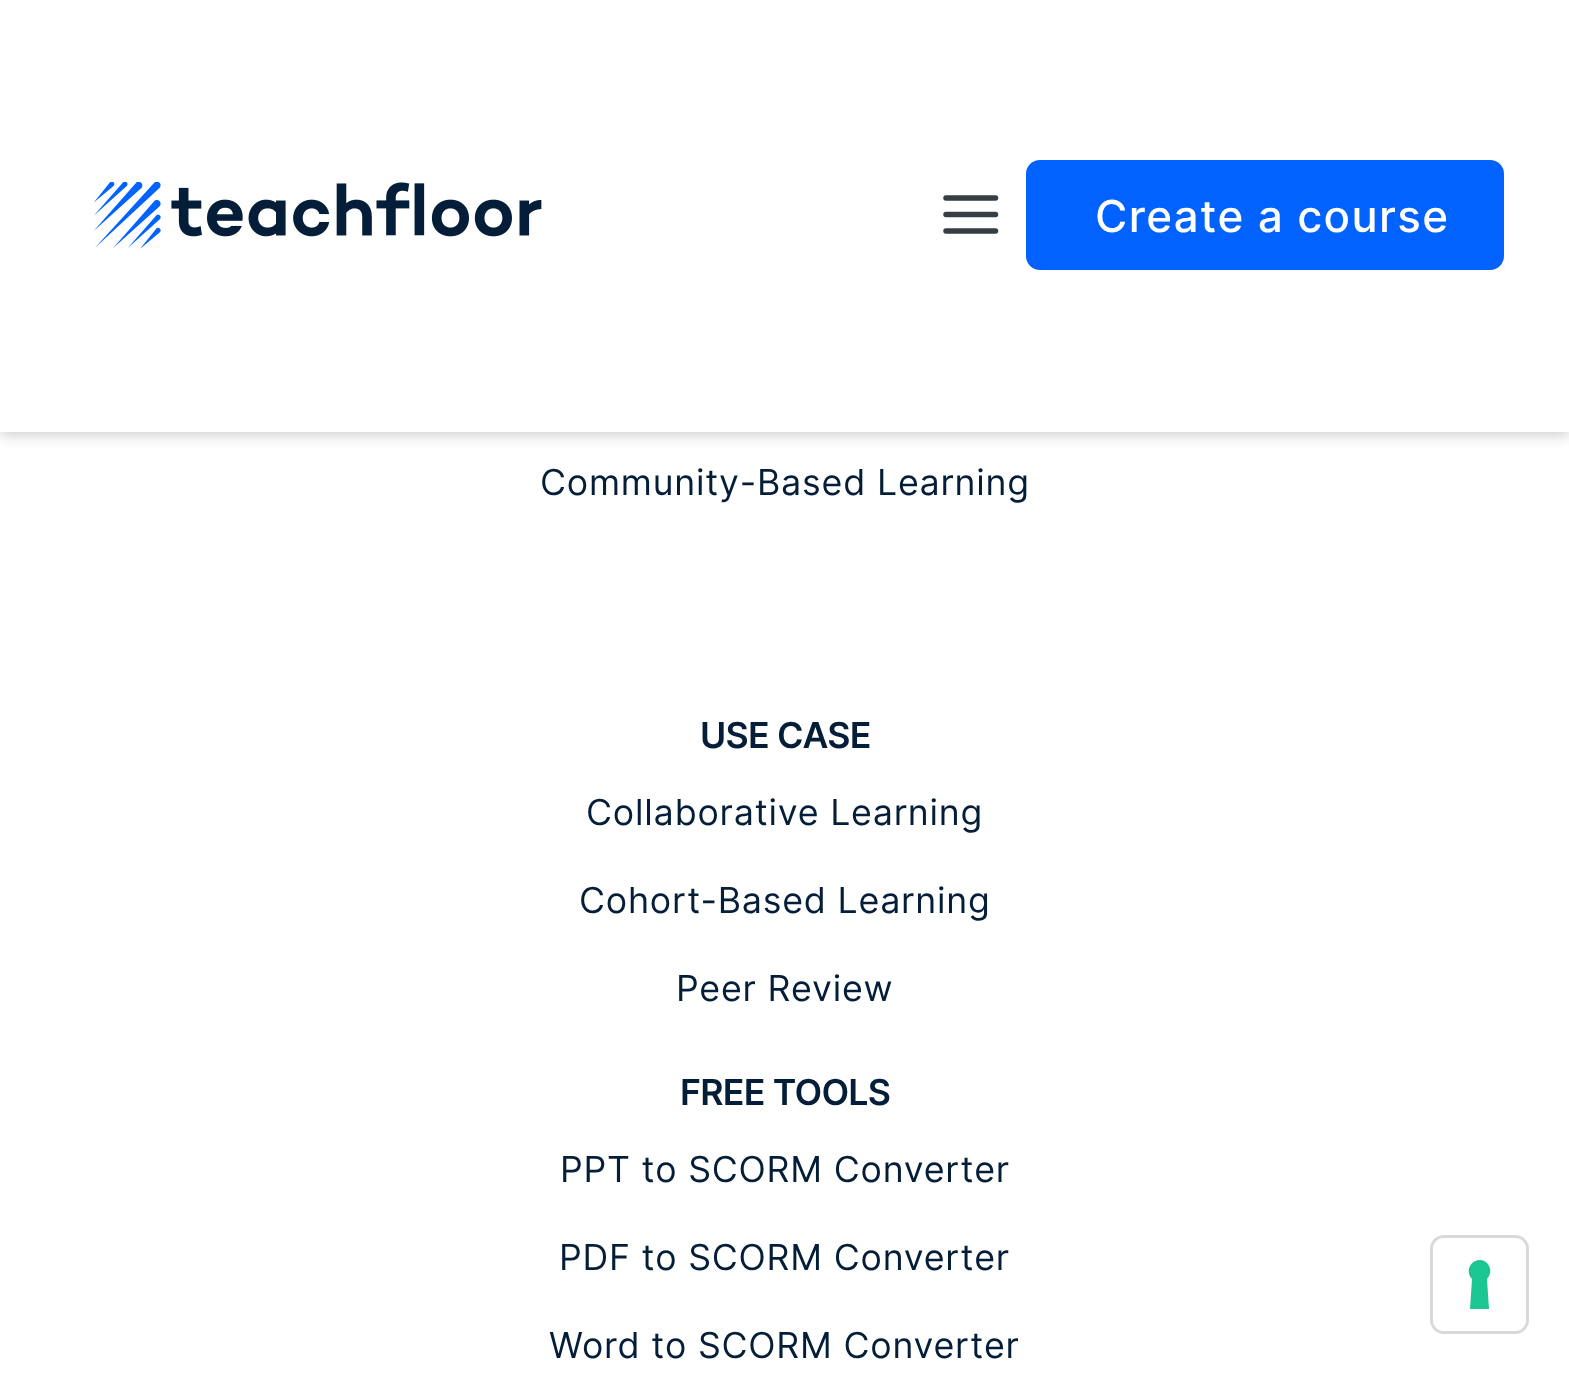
<?xml version="1.0" encoding="UTF-8"?>
<svg xmlns="http://www.w3.org/2000/svg" width="1569" height="1374">
    <defs>
        <filter id="blur1" x="-50%" y="-200%" width="200%" height="500%"><feGaussianBlur stdDeviation="7"/></filter>
    </defs>
    <rect width="100%" height="100%" fill="#FFFFFF"/>
    <rect x="0" y="3" width="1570" height="432" fill="#000000" fill-opacity="0.2" filter="url(#blur1)"/>
    <rect x="0" y="0" width="1569" height="432" fill="#FFFFFF"/>
    <image x="94" y="182" width="448" height="67" href="img_01.png"/>
    <path d="M 946 214.5 H 995.5 M 946 198 H 995.5 M 946 231 H 995.5" fill="none" stroke="#353E44" stroke-width="5.5" stroke-linecap="round" stroke-linejoin="round"/>
    <rect x="1026" y="160" width="478" height="110" rx="14" fill="#0162FF"/>
    <text x="1095" y="232" font-family="Inter" font-size="44" font-weight="500" letter-spacing="1.4" fill="#FFFFFF">Create a course</text>
    <text x="540" y="495" font-family="Inter" font-size="35.75" letter-spacing="0.8" fill="#041E39">Community-Based Learning</text>
    <text x="700" y="748" font-family="Inter" font-size="35.75" font-weight="600" letter-spacing="-0.75" fill="#041E39">USE CASE</text>
    <text x="586" y="825" font-family="Inter" font-size="35.75" letter-spacing="0.8" fill="#041E39">Collaborative Learning</text>
    <text x="579" y="913" font-family="Inter" font-size="35.75" letter-spacing="0.8" fill="#041E39">Cohort-Based Learning</text>
    <text x="676" y="1001" font-family="Inter" font-size="35.75" letter-spacing="0.8" fill="#041E39">Peer Review</text>
    <text x="680" y="1105" font-family="Inter" font-size="35.75" font-weight="600" letter-spacing="-0.75" fill="#041E39">FREE TOOLS</text>
    <text x="560" y="1182" font-family="Inter" font-size="35.75" letter-spacing="0.8" fill="#041E39">PPT to SCORM Converter</text>
    <text x="559" y="1270" font-family="Inter" font-size="35.75" letter-spacing="0.8" fill="#041E39">PDF to SCORM Converter</text>
    <text x="549" y="1358" font-family="Inter" font-size="35.75" letter-spacing="0.8" fill="#041E39">Word to SCORM Converter</text>
    <rect x="1431.5" y="1236.5" width="96" height="96" rx="12.5" fill="none" stroke="#D9D9D9" stroke-width="3"/>
    <rect x="1433" y="1238" width="93" height="93" rx="11" fill="#FFFFFF"/>
    <path d="M 1480 1260 C 1489 1260 1494 1272 1487 1279 L 1489 1309 H 1470 L 1472 1279 C 1465 1272 1470 1260 1480 1260 Z" fill="#1CC691" fill-rule="evenodd"/>
</svg>
